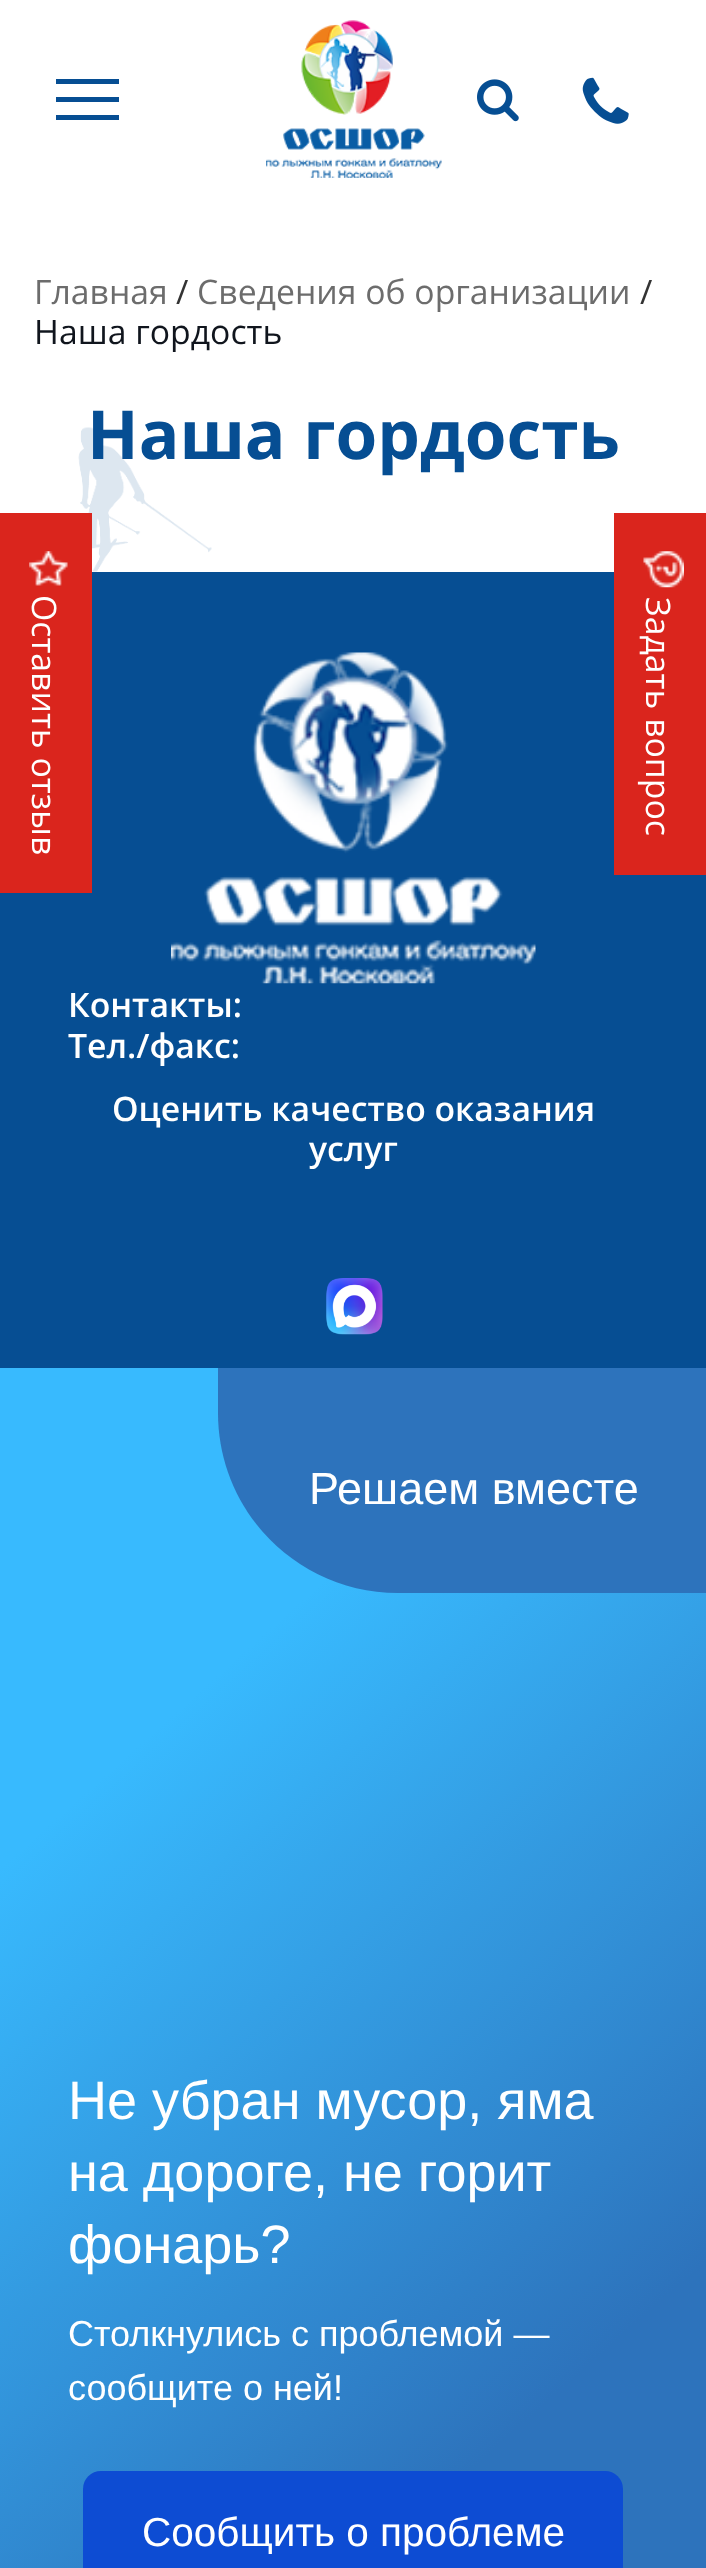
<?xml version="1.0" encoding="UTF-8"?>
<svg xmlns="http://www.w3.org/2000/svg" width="706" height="2568">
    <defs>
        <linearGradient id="g1" gradientUnits="userSpaceOnUse" x1="-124" y1="1478" x2="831" y2="2554"><stop offset="0.26" stop-color="#38BAFE"/><stop offset="0.79" stop-color="#2D73BC"/></linearGradient>
    </defs>
    <rect width="100%" height="100%" fill="#FFFFFF"/>
    <rect x="56" y="79" width="63" height="5" fill="#064E93"/>
    <rect x="56" y="97" width="63" height="5" fill="#064E93"/>
    <rect x="56" y="115" width="63" height="5" fill="#064E93"/>
    <image x="266" y="20" width="176" height="158" href="img_01.png"/>
    <image x="582" y="77" width="47" height="47" href="img_02.png"/>
    <image x="477" y="79" width="42" height="43" href="img_03.png"/>
    <image x="78" y="427" width="134" height="145" href="img_04.png"/>
    <text x="34" y="304" font-family="Open Sans" font-size="33.75" fill="#6C6C6C">Главная</text>
    <text x="176" y="304" font-family="Open Sans" font-size="33.75" fill="#333333">/</text>
    <text x="197" y="304" font-family="Open Sans" font-size="33.75" fill="#6C6C6C">Сведения об организации</text>
    <text x="640" y="304" font-family="Open Sans" font-size="33.75" fill="#333333">/</text>
    <text x="34" y="344" font-family="Open Sans" font-size="33.75" fill="#10151D">Наша гордость</text>
    <text x="87" y="459" font-family="Open Sans" font-size="67.5" font-weight="700" fill="#064E93">Наша гордость</text>
    <rect x="0" y="572" width="706" height="796" fill="#064E93"/>
    <image x="171" y="652" width="365" height="332" href="img_05.png"/>
    <text font-family="Open Sans" font-size="33.75" font-weight="600" fill="#FFFFFF">
        <tspan x="68" y="1017">Контакты:</tspan>
        <tspan x="68" y="1058">Тел./факс:</tspan>
    </text>
    <text x="112" y="1121" font-family="Open Sans" font-size="33.75" font-weight="600" fill="#FFFFFF">Оценить качество оказания</text>
    <text x="309" y="1161" font-family="Open Sans" font-size="33.75" font-weight="600" fill="#FFFFFF">услуг</text>
    <image x="326" y="1278" width="57" height="57" href="img_06.png"/>
    <rect x="0" y="513" width="92" height="380" fill="#DA251D"/>
    <image x="29" y="551" width="39" height="35" href="img_07.png"/>
    <text x="32" y="595" transform="rotate(90 32 595)" font-family="Open Sans" font-size="33.75" fill="#FFFFFF">Оставить отзыв</text>
    <rect x="614" y="513" width="92" height="362" fill="#DA251D"/>
    <image x="643" y="551" width="41" height="37" href="img_08.png"/>
    <text x="646" y="597" transform="rotate(90 646 597)" font-family="Open Sans" font-size="33.75" fill="#FFFFFF">Задать вопрос</text>
    <rect x="0" y="1368" width="706" height="1200" fill="url(#g1)"/>
    <path d="M 218 1368 H 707 V 1593 H 398 C 298.5 1593 218 1512.5 218 1413 Z" fill="#2D73BC"/>
    <text x="309" y="1504" font-family="Liberation Sans" font-size="45" fill="#FFFFFF">Решаем вместе</text>
    <text font-family="Liberation Sans" font-size="54" fill="#FFFFFF">
        <tspan x="68" y="2119">Не убран мусор, яма</tspan>
        <tspan x="68" y="2191">на дороге, не горит</tspan>
        <tspan x="68" y="2263">фонарь?</tspan>
    </text>
    <text font-family="Liberation Sans" font-size="36" fill="#FFFFFF">
        <tspan x="68" y="2346">Столкнулись с проблемой —</tspan>
        <tspan x="68" y="2400">сообщите о ней!</tspan>
    </text>
    <rect x="83" y="2471" width="540" height="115" rx="18" fill="#0D4CD3"/>
    <text x="142" y="2546" font-family="Liberation Sans" font-size="40.5" fill="#FFFFFF">Сообщить о проблеме</text>
</svg>
